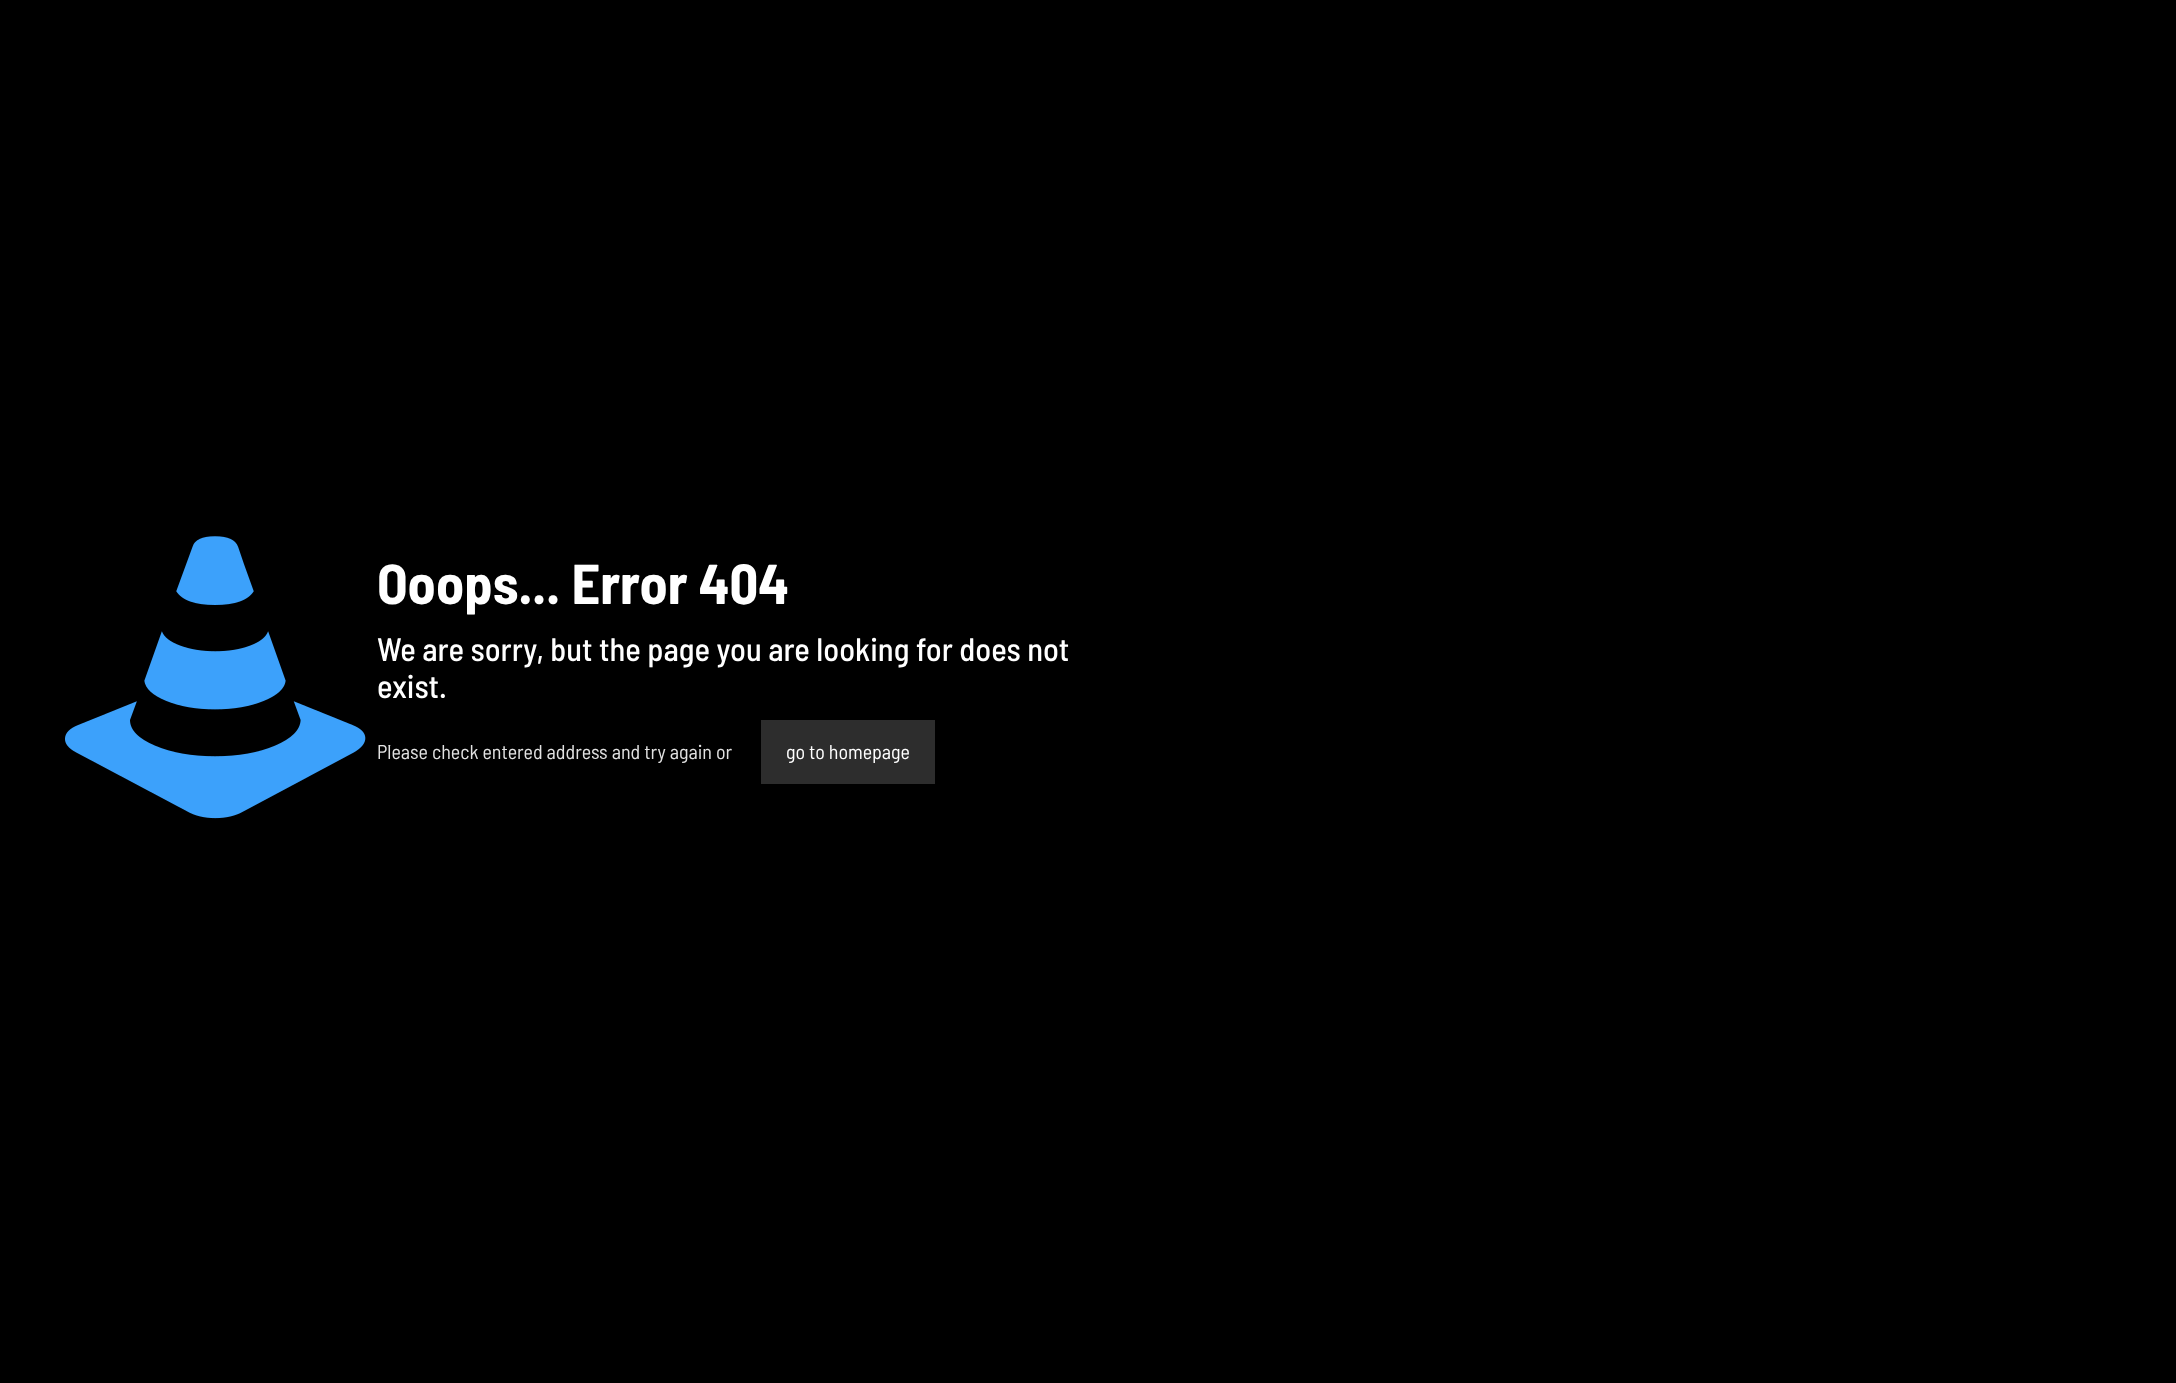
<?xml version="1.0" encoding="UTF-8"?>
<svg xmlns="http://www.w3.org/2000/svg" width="2176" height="1383">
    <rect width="100%" height="100%" fill="#000000"/>
    <image x="65" y="536" width="301" height="283" href="img_01.png"/>
    <text x="377" y="604" font-family="Barlow Semi Condensed" font-size="56.25" font-weight="700" fill="#FFFFFF">Ooops... Error 404</text>
    <text font-family="Barlow Semi Condensed" font-size="32.5" font-weight="500" fill="#FFFFFF">
        <tspan x="377" y="661">We are sorry, but the page you are looking for does not</tspan>
        <tspan x="377" y="698">exist.</tspan>
    </text>
    <text x="377" y="759" font-family="Barlow Semi Condensed" font-size="20" fill="#E2E2E2">Please check entered address and try again or</text>
    <rect x="761" y="720" width="174" height="64" fill="#2D2D2D"/>
    <text x="786" y="759" font-family="Barlow Semi Condensed" font-size="20" fill="#FFFFFF">go to homepage</text>
</svg>
